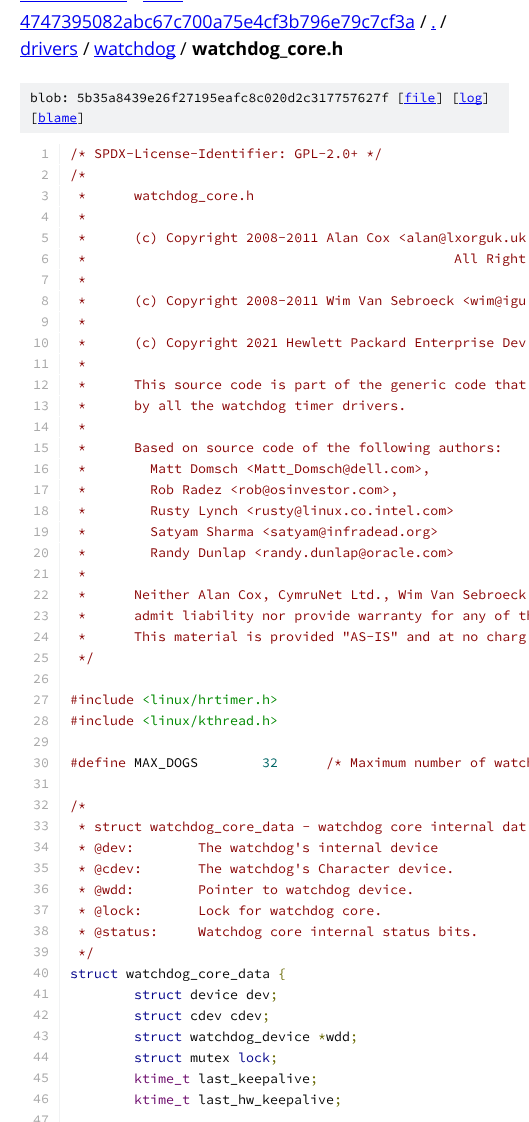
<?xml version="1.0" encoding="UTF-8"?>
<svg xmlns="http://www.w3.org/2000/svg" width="529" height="1122">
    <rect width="100%" height="100%" fill="#FFFFFF"/>
    <rect x="20" y="1" width="107" height="1" fill="#0000EE"/>
    <rect x="143" y="1" width="40" height="1" fill="#0000EE"/>
    <text x="20" y="28" font-family="Open Sans" font-size="18" fill="#0000EE">4747395082abc67c700a75e4cf3b796e79c7cf3a</text>
    <rect x="20" y="29" width="395" height="1" fill="#0000EE"/>
    <text x="420" y="28" font-family="Open Sans" font-size="18" fill="#000000">/</text>
    <text x="431" y="28" font-family="Open Sans" font-size="18" fill="#0000EE">.</text>
    <rect x="431" y="29" width="5" height="1" fill="#0000EE"/>
    <text x="440" y="28" font-family="Open Sans" font-size="18" fill="#000000">/</text>
    <text x="20" y="55" font-family="Open Sans" font-size="18" fill="#0000EE">drivers</text>
    <rect x="20" y="56" width="58" height="1" fill="#0000EE"/>
    <text x="83" y="55" font-family="Open Sans" font-size="18" fill="#000000">/</text>
    <rect x="94" y="56" width="82" height="1" fill="#0000EE"/>
    <text x="94" y="55" font-family="Open Sans" font-size="18" fill="#0000EE">watchdog</text>
    <text x="180" y="55" font-family="Open Sans" font-size="18" fill="#000000">/</text>
    <text x="192" y="55" font-family="Open Sans" font-size="18" font-weight="700" fill="#000000">watchdog_core.h</text>
    <rect x="20" y="83" width="489" height="50" fill="#F1F2F3"/>
    <text x="30" y="102" font-family="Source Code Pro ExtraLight" font-size="13" font-weight="200" fill="#000000">blob: 5b35a8439e26f27195eafc8c020d2c317757627f [</text>
    <text x="404" y="102" font-family="Source Code Pro ExtraLight" font-size="13" font-weight="200" fill="#0000EE">file</text>
    <rect x="404" y="103" width="32" height="1" fill="#0000EE"/>
    <text x="436" y="102" font-family="Source Code Pro ExtraLight" font-size="13" font-weight="200" fill="#000000">] [</text>
    <rect x="459" y="103" width="23" height="1" fill="#0000EE"/>
    <text x="459" y="102" font-family="Source Code Pro ExtraLight" font-size="13" font-weight="200" fill="#0000EE">log</text>
    <text x="482" y="102" font-family="Source Code Pro ExtraLight" font-size="13" font-weight="200" fill="#000000">]</text>
    <text x="30" y="122" font-family="Source Code Pro ExtraLight" font-size="13" font-weight="200" fill="#000000">[</text>
    <text x="38" y="122" font-family="Source Code Pro ExtraLight" font-size="13" font-weight="200" fill="#0000EE">blame</text>
    <rect x="38" y="123" width="39" height="1" fill="#0000EE"/>
    <text x="77" y="122" font-family="Source Code Pro ExtraLight" font-size="13" font-weight="200" fill="#000000">]</text>
    <rect x="59" y="144" width="1" height="20" fill="#F1F2F3"/>
    <text x="41" y="158" font-family="Source Code Pro ExtraLight" font-size="13.35" font-weight="200" fill="#AAAAAA">1</text>
    <text x="70" y="158" font-family="Source Code Pro ExtraLight" font-size="13.35" font-weight="200" fill="#880000">/* SPDX-License-Identifier: GPL-2.0+ */</text>
    <rect x="59" y="165" width="1" height="20" fill="#F1F2F3"/>
    <text x="41" y="179" font-family="Source Code Pro ExtraLight" font-size="13.35" font-weight="200" fill="#AAAAAA">2</text>
    <text x="70" y="179" font-family="Source Code Pro ExtraLight" font-size="13.35" font-weight="200" fill="#880000">/*</text>
    <rect x="59" y="186" width="1" height="20" fill="#F1F2F3"/>
    <text x="41" y="200" font-family="Source Code Pro ExtraLight" font-size="13.35" font-weight="200" fill="#AAAAAA">3</text>
    <text x="78" y="200" font-family="Source Code Pro ExtraLight" font-size="13.35" font-weight="200" fill="#880000">*</text>
    <text x="134" y="200" font-family="Source Code Pro ExtraLight" font-size="13.35" font-weight="200" fill="#880000">watchdog_core.h</text>
    <rect x="59" y="207" width="1" height="20" fill="#F1F2F3"/>
    <text x="41" y="221" font-family="Source Code Pro ExtraLight" font-size="13.35" font-weight="200" fill="#AAAAAA">4</text>
    <text x="78" y="221" font-family="Source Code Pro ExtraLight" font-size="13.35" font-weight="200" fill="#880000">*</text>
    <rect x="59" y="228" width="1" height="20" fill="#F1F2F3"/>
    <text x="41" y="242" font-family="Source Code Pro ExtraLight" font-size="13.35" font-weight="200" fill="#AAAAAA">5</text>
    <text x="78" y="242" font-family="Source Code Pro ExtraLight" font-size="13.35" font-weight="200" fill="#880000">*</text>
    <text x="134" y="242" font-family="Source Code Pro ExtraLight" font-size="13.35" font-weight="200" fill="#880000">(c) Copyright 2008-2011 Alan Cox &lt;alan@lxorguk.uk</text>
    <rect x="59" y="249" width="1" height="20" fill="#F1F2F3"/>
    <text x="41" y="263" font-family="Source Code Pro ExtraLight" font-size="13.35" font-weight="200" fill="#AAAAAA">6</text>
    <text x="78" y="263" font-family="Source Code Pro ExtraLight" font-size="13.35" font-weight="200" fill="#880000">*</text>
    <text x="454" y="263" font-family="Source Code Pro ExtraLight" font-size="13.35" font-weight="200" fill="#880000">All Right</text>
    <rect x="59" y="270" width="1" height="20" fill="#F1F2F3"/>
    <text x="41" y="284" font-family="Source Code Pro ExtraLight" font-size="13.35" font-weight="200" fill="#AAAAAA">7</text>
    <text x="78" y="284" font-family="Source Code Pro ExtraLight" font-size="13.35" font-weight="200" fill="#880000">*</text>
    <rect x="59" y="291" width="1" height="20" fill="#F1F2F3"/>
    <text x="41" y="305" font-family="Source Code Pro ExtraLight" font-size="13.35" font-weight="200" fill="#AAAAAA">8</text>
    <text x="78" y="305" font-family="Source Code Pro ExtraLight" font-size="13.35" font-weight="200" fill="#880000">*</text>
    <text x="134" y="305" font-family="Source Code Pro ExtraLight" font-size="13.35" font-weight="200" fill="#880000">(c) Copyright 2008-2011 Wim Van Sebroeck &lt;wim@igu</text>
    <rect x="59" y="312" width="1" height="20" fill="#F1F2F3"/>
    <text x="41" y="326" font-family="Source Code Pro ExtraLight" font-size="13.35" font-weight="200" fill="#AAAAAA">9</text>
    <text x="78" y="326" font-family="Source Code Pro ExtraLight" font-size="13.35" font-weight="200" fill="#880000">*</text>
    <rect x="59" y="333" width="1" height="20" fill="#F1F2F3"/>
    <text x="33" y="347" font-family="Source Code Pro ExtraLight" font-size="13.35" font-weight="200" fill="#AAAAAA">10</text>
    <text x="78" y="347" font-family="Source Code Pro ExtraLight" font-size="13.35" font-weight="200" fill="#880000">*</text>
    <text x="134" y="347" font-family="Source Code Pro ExtraLight" font-size="13.35" font-weight="200" fill="#880000">(c) Copyright 2021 Hewlett Packard Enterprise Dev</text>
    <rect x="59" y="354" width="1" height="20" fill="#F1F2F3"/>
    <text x="33" y="368" font-family="Source Code Pro ExtraLight" font-size="13.35" font-weight="200" fill="#AAAAAA">11</text>
    <text x="78" y="368" font-family="Source Code Pro ExtraLight" font-size="13.35" font-weight="200" fill="#880000">*</text>
    <rect x="59" y="375" width="1" height="20" fill="#F1F2F3"/>
    <text x="33" y="389" font-family="Source Code Pro ExtraLight" font-size="13.35" font-weight="200" fill="#AAAAAA">12</text>
    <text x="78" y="389" font-family="Source Code Pro ExtraLight" font-size="13.35" font-weight="200" fill="#880000">*</text>
    <text x="134" y="389" font-family="Source Code Pro ExtraLight" font-size="13.35" font-weight="200" fill="#880000">This source code is part of the generic code that</text>
    <rect x="59" y="396" width="1" height="20" fill="#F1F2F3"/>
    <text x="33" y="410" font-family="Source Code Pro ExtraLight" font-size="13.35" font-weight="200" fill="#AAAAAA">13</text>
    <text x="78" y="410" font-family="Source Code Pro ExtraLight" font-size="13.35" font-weight="200" fill="#880000">*</text>
    <text x="134" y="410" font-family="Source Code Pro ExtraLight" font-size="13.35" font-weight="200" fill="#880000">by all the watchdog timer drivers.</text>
    <rect x="59" y="417" width="1" height="20" fill="#F1F2F3"/>
    <text x="33" y="431" font-family="Source Code Pro ExtraLight" font-size="13.35" font-weight="200" fill="#AAAAAA">14</text>
    <text x="78" y="431" font-family="Source Code Pro ExtraLight" font-size="13.35" font-weight="200" fill="#880000">*</text>
    <rect x="59" y="438" width="1" height="20" fill="#F1F2F3"/>
    <text x="33" y="452" font-family="Source Code Pro ExtraLight" font-size="13.35" font-weight="200" fill="#AAAAAA">15</text>
    <text x="78" y="452" font-family="Source Code Pro ExtraLight" font-size="13.35" font-weight="200" fill="#880000">*</text>
    <text x="134" y="452" font-family="Source Code Pro ExtraLight" font-size="13.35" font-weight="200" fill="#880000">Based on source code of the following authors:</text>
    <rect x="59" y="459" width="1" height="20" fill="#F1F2F3"/>
    <text x="33" y="473" font-family="Source Code Pro ExtraLight" font-size="13.35" font-weight="200" fill="#AAAAAA">16</text>
    <text x="78" y="473" font-family="Source Code Pro ExtraLight" font-size="13.35" font-weight="200" fill="#880000">*</text>
    <text x="150" y="473" font-family="Source Code Pro ExtraLight" font-size="13.35" font-weight="200" fill="#880000">Matt Domsch &lt;Matt_Domsch@dell.com&gt;,</text>
    <rect x="59" y="480" width="1" height="20" fill="#F1F2F3"/>
    <text x="33" y="494" font-family="Source Code Pro ExtraLight" font-size="13.35" font-weight="200" fill="#AAAAAA">17</text>
    <text x="78" y="494" font-family="Source Code Pro ExtraLight" font-size="13.35" font-weight="200" fill="#880000">*</text>
    <text x="150" y="494" font-family="Source Code Pro ExtraLight" font-size="13.35" font-weight="200" fill="#880000">Rob Radez &lt;rob@osinvestor.com&gt;,</text>
    <rect x="59" y="501" width="1" height="20" fill="#F1F2F3"/>
    <text x="33" y="515" font-family="Source Code Pro ExtraLight" font-size="13.35" font-weight="200" fill="#AAAAAA">18</text>
    <text x="78" y="515" font-family="Source Code Pro ExtraLight" font-size="13.35" font-weight="200" fill="#880000">*</text>
    <text x="150" y="515" font-family="Source Code Pro ExtraLight" font-size="13.35" font-weight="200" fill="#880000">Rusty Lynch &lt;rusty@linux.co.intel.com&gt;</text>
    <rect x="59" y="522" width="1" height="20" fill="#F1F2F3"/>
    <text x="33" y="536" font-family="Source Code Pro ExtraLight" font-size="13.35" font-weight="200" fill="#AAAAAA">19</text>
    <text x="78" y="536" font-family="Source Code Pro ExtraLight" font-size="13.35" font-weight="200" fill="#880000">*</text>
    <text x="150" y="536" font-family="Source Code Pro ExtraLight" font-size="13.35" font-weight="200" fill="#880000">Satyam Sharma &lt;satyam@infradead.org&gt;</text>
    <rect x="59" y="543" width="1" height="579" fill="#F1F2F3"/>
    <text x="33" y="557" font-family="Source Code Pro ExtraLight" font-size="13.35" font-weight="200" fill="#AAAAAA">20</text>
    <text x="78" y="557" font-family="Source Code Pro ExtraLight" font-size="13.35" font-weight="200" fill="#880000">*</text>
    <text x="150" y="557" font-family="Source Code Pro ExtraLight" font-size="13.35" font-weight="200" fill="#880000">Randy Dunlap &lt;randy.dunlap@oracle.com&gt;</text>
    <text x="33" y="578" font-family="Source Code Pro ExtraLight" font-size="13.35" font-weight="200" fill="#AAAAAA">21</text>
    <text x="78" y="578" font-family="Source Code Pro ExtraLight" font-size="13.35" font-weight="200" fill="#880000">*</text>
    <text x="33" y="599" font-family="Source Code Pro ExtraLight" font-size="13.35" font-weight="200" fill="#AAAAAA">22</text>
    <text x="78" y="599" font-family="Source Code Pro ExtraLight" font-size="13.35" font-weight="200" fill="#880000">*</text>
    <text x="134" y="599" font-family="Source Code Pro ExtraLight" font-size="13.35" font-weight="200" fill="#880000">Neither Alan Cox, CymruNet Ltd., Wim Van Sebroeck</text>
    <text x="33" y="620" font-family="Source Code Pro ExtraLight" font-size="13.35" font-weight="200" fill="#AAAAAA">23</text>
    <text x="78" y="620" font-family="Source Code Pro ExtraLight" font-size="13.35" font-weight="200" fill="#880000">*</text>
    <text x="134" y="620" font-family="Source Code Pro ExtraLight" font-size="13.35" font-weight="200" fill="#880000">admit liability nor provide warranty for any of th</text>
    <text x="33" y="641" font-family="Source Code Pro ExtraLight" font-size="13.35" font-weight="200" fill="#AAAAAA">24</text>
    <text x="78" y="641" font-family="Source Code Pro ExtraLight" font-size="13.35" font-weight="200" fill="#880000">*</text>
    <text x="134" y="641" font-family="Source Code Pro ExtraLight" font-size="13.35" font-weight="200" fill="#880000">This material is provided "AS-IS" and at no charg</text>
    <text x="33" y="662" font-family="Source Code Pro ExtraLight" font-size="13.35" font-weight="200" fill="#AAAAAA">25</text>
    <text x="78" y="662" font-family="Source Code Pro ExtraLight" font-size="13.35" font-weight="200" fill="#880000">*/</text>
    <text font-family="Source Code Pro ExtraLight" font-size="13.35" font-weight="200" fill="#AAAAAA">
        <tspan x="33" y="683">26</tspan>
        <tspan x="33" y="704">27</tspan>
    </text>
    <text x="70" y="704" font-family="Source Code Pro ExtraLight" font-size="13.35" font-weight="200" fill="#880000">#include</text>
    <text x="142" y="704" font-family="Source Code Pro ExtraLight" font-size="13.35" font-weight="200" fill="#008800">&lt;linux/hrtimer.h&gt;</text>
    <text x="33" y="725" font-family="Source Code Pro ExtraLight" font-size="13.35" font-weight="200" fill="#AAAAAA">28</text>
    <text x="70" y="725" font-family="Source Code Pro ExtraLight" font-size="13.35" font-weight="200" fill="#880000">#include</text>
    <text x="142" y="725" font-family="Source Code Pro ExtraLight" font-size="13.35" font-weight="200" fill="#008800">&lt;linux/kthread.h&gt;</text>
    <text font-family="Source Code Pro ExtraLight" font-size="13.35" font-weight="200" fill="#AAAAAA">
        <tspan x="33" y="746">29</tspan>
        <tspan x="33" y="767">30</tspan>
    </text>
    <text x="70" y="767" font-family="Source Code Pro ExtraLight" font-size="13.35" font-weight="200" fill="#880000">#define</text>
    <text x="134" y="767" font-family="Source Code Pro ExtraLight" font-size="13.35" font-weight="200" fill="#000000">MAX_DOGS</text>
    <text x="262" y="767" font-family="Source Code Pro ExtraLight" font-size="13.35" font-weight="200" fill="#006666">32</text>
    <text x="326" y="767" font-family="Source Code Pro ExtraLight" font-size="13.35" font-weight="200" fill="#880000">/* Maximum number of watch</text>
    <text font-family="Source Code Pro ExtraLight" font-size="13.35" font-weight="200" fill="#AAAAAA">
        <tspan x="33" y="788">31</tspan>
        <tspan x="33" y="809">32</tspan>
    </text>
    <text x="70" y="810" font-family="Source Code Pro ExtraLight" font-size="13.35" font-weight="200" fill="#880000">/*</text>
    <text x="33" y="830" font-family="Source Code Pro ExtraLight" font-size="13.35" font-weight="200" fill="#AAAAAA">33</text>
    <text x="78" y="831" font-family="Source Code Pro ExtraLight" font-size="13.35" font-weight="200" fill="#880000">* struct watchdog_core_data - watchdog core internal dat</text>
    <text x="33" y="851" font-family="Source Code Pro ExtraLight" font-size="13.35" font-weight="200" fill="#AAAAAA">34</text>
    <text x="78" y="852" font-family="Source Code Pro ExtraLight" font-size="13.35" font-weight="200" fill="#880000">* @dev:</text>
    <text x="198" y="852" font-family="Source Code Pro ExtraLight" font-size="13.35" font-weight="200" fill="#880000">The watchdog's internal device</text>
    <text x="33" y="872" font-family="Source Code Pro ExtraLight" font-size="13.35" font-weight="200" fill="#AAAAAA">35</text>
    <text x="78" y="873" font-family="Source Code Pro ExtraLight" font-size="13.35" font-weight="200" fill="#880000">* @cdev:</text>
    <text x="198" y="873" font-family="Source Code Pro ExtraLight" font-size="13.35" font-weight="200" fill="#880000">The watchdog's Character device.</text>
    <text x="33" y="893" font-family="Source Code Pro ExtraLight" font-size="13.35" font-weight="200" fill="#AAAAAA">36</text>
    <text x="78" y="894" font-family="Source Code Pro ExtraLight" font-size="13.35" font-weight="200" fill="#880000">* @wdd:</text>
    <text x="198" y="894" font-family="Source Code Pro ExtraLight" font-size="13.35" font-weight="200" fill="#880000">Pointer to watchdog device.</text>
    <text x="33" y="914" font-family="Source Code Pro ExtraLight" font-size="13.35" font-weight="200" fill="#AAAAAA">37</text>
    <text x="78" y="915" font-family="Source Code Pro ExtraLight" font-size="13.35" font-weight="200" fill="#880000">* @lock:</text>
    <text x="198" y="915" font-family="Source Code Pro ExtraLight" font-size="13.35" font-weight="200" fill="#880000">Lock for watchdog core.</text>
    <text x="33" y="935" font-family="Source Code Pro ExtraLight" font-size="13.35" font-weight="200" fill="#AAAAAA">38</text>
    <text x="78" y="936" font-family="Source Code Pro ExtraLight" font-size="13.35" font-weight="200" fill="#880000">* @status:</text>
    <text x="198" y="936" font-family="Source Code Pro ExtraLight" font-size="13.35" font-weight="200" fill="#880000">Watchdog core internal status bits.</text>
    <text x="33" y="956" font-family="Source Code Pro ExtraLight" font-size="13.35" font-weight="200" fill="#AAAAAA">39</text>
    <text x="78" y="957" font-family="Source Code Pro ExtraLight" font-size="13.35" font-weight="200" fill="#880000">*/</text>
    <text x="33" y="977" font-family="Source Code Pro ExtraLight" font-size="13.35" font-weight="200" fill="#AAAAAA">40</text>
    <text x="70" y="978" font-family="Source Code Pro ExtraLight" font-size="13.35" font-weight="200" fill="#000088">struct</text>
    <text x="126" y="978" font-family="Source Code Pro ExtraLight" font-size="13.35" font-weight="200" fill="#000000">watchdog_core_data</text>
    <text x="278" y="978" font-family="Source Code Pro ExtraLight" font-size="13.35" font-weight="200" fill="#666600">{</text>
    <text x="33" y="998" font-family="Source Code Pro ExtraLight" font-size="13.35" font-weight="200" fill="#AAAAAA">41</text>
    <text x="134" y="999" font-family="Source Code Pro ExtraLight" font-size="13.35" font-weight="200" fill="#000088">struct</text>
    <text x="190" y="999" font-family="Source Code Pro ExtraLight" font-size="13.35" font-weight="200" fill="#000000">device dev</text>
    <text x="270" y="999" font-family="Source Code Pro ExtraLight" font-size="13.35" font-weight="200" fill="#666600">;</text>
    <text x="33" y="1019" font-family="Source Code Pro ExtraLight" font-size="13.35" font-weight="200" fill="#AAAAAA">42</text>
    <text x="134" y="1020" font-family="Source Code Pro ExtraLight" font-size="13.35" font-weight="200" fill="#000088">struct</text>
    <text x="190" y="1020" font-family="Source Code Pro ExtraLight" font-size="13.35" font-weight="200" fill="#000000">cdev cdev</text>
    <text x="262" y="1020" font-family="Source Code Pro ExtraLight" font-size="13.35" font-weight="200" fill="#666600">;</text>
    <text x="33" y="1040" font-family="Source Code Pro ExtraLight" font-size="13.35" font-weight="200" fill="#AAAAAA">43</text>
    <text x="134" y="1041" font-family="Source Code Pro ExtraLight" font-size="13.35" font-weight="200" fill="#000088">struct</text>
    <text x="190" y="1041" font-family="Source Code Pro ExtraLight" font-size="13.35" font-weight="200" fill="#000000">watchdog_device</text>
    <text x="318" y="1041" font-family="Source Code Pro ExtraLight" font-size="13.35" font-weight="200" fill="#666600">*</text>
    <text x="326" y="1041" font-family="Source Code Pro ExtraLight" font-size="13.35" font-weight="200" fill="#000000">wdd</text>
    <text x="350" y="1041" font-family="Source Code Pro ExtraLight" font-size="13.35" font-weight="200" fill="#666600">;</text>
    <text x="33" y="1061" font-family="Source Code Pro ExtraLight" font-size="13.35" font-weight="200" fill="#AAAAAA">44</text>
    <text x="134" y="1062" font-family="Source Code Pro ExtraLight" font-size="13.35" font-weight="200" fill="#000088">struct</text>
    <text x="190" y="1062" font-family="Source Code Pro ExtraLight" font-size="13.35" font-weight="200" fill="#000000">mutex</text>
    <text x="238" y="1062" font-family="Source Code Pro ExtraLight" font-size="13.35" font-weight="200" fill="#000088">lock</text>
    <text x="270" y="1062" font-family="Source Code Pro ExtraLight" font-size="13.35" font-weight="200" fill="#666600">;</text>
    <text x="33" y="1082" font-family="Source Code Pro ExtraLight" font-size="13.35" font-weight="200" fill="#AAAAAA">45</text>
    <text x="134" y="1083" font-family="Source Code Pro ExtraLight" font-size="13.35" font-weight="200" fill="#660066">ktime_t</text>
    <text x="198" y="1083" font-family="Source Code Pro ExtraLight" font-size="13.35" font-weight="200" fill="#000000">last_keepalive</text>
    <text x="310" y="1083" font-family="Source Code Pro ExtraLight" font-size="13.35" font-weight="200" fill="#666600">;</text>
    <text x="33" y="1103" font-family="Source Code Pro ExtraLight" font-size="13.35" font-weight="200" fill="#AAAAAA">46</text>
    <text x="134" y="1104" font-family="Source Code Pro ExtraLight" font-size="13.35" font-weight="200" fill="#660066">ktime_t</text>
    <text x="198" y="1104" font-family="Source Code Pro ExtraLight" font-size="13.35" font-weight="200" fill="#000000">last_hw_keepalive</text>
    <text x="334" y="1104" font-family="Source Code Pro ExtraLight" font-size="13.35" font-weight="200" fill="#666600">;</text>
    <text x="33" y="1124" font-family="Source Code Pro ExtraLight" font-size="13.35" font-weight="200" fill="#AAAAAA">47</text>
</svg>
